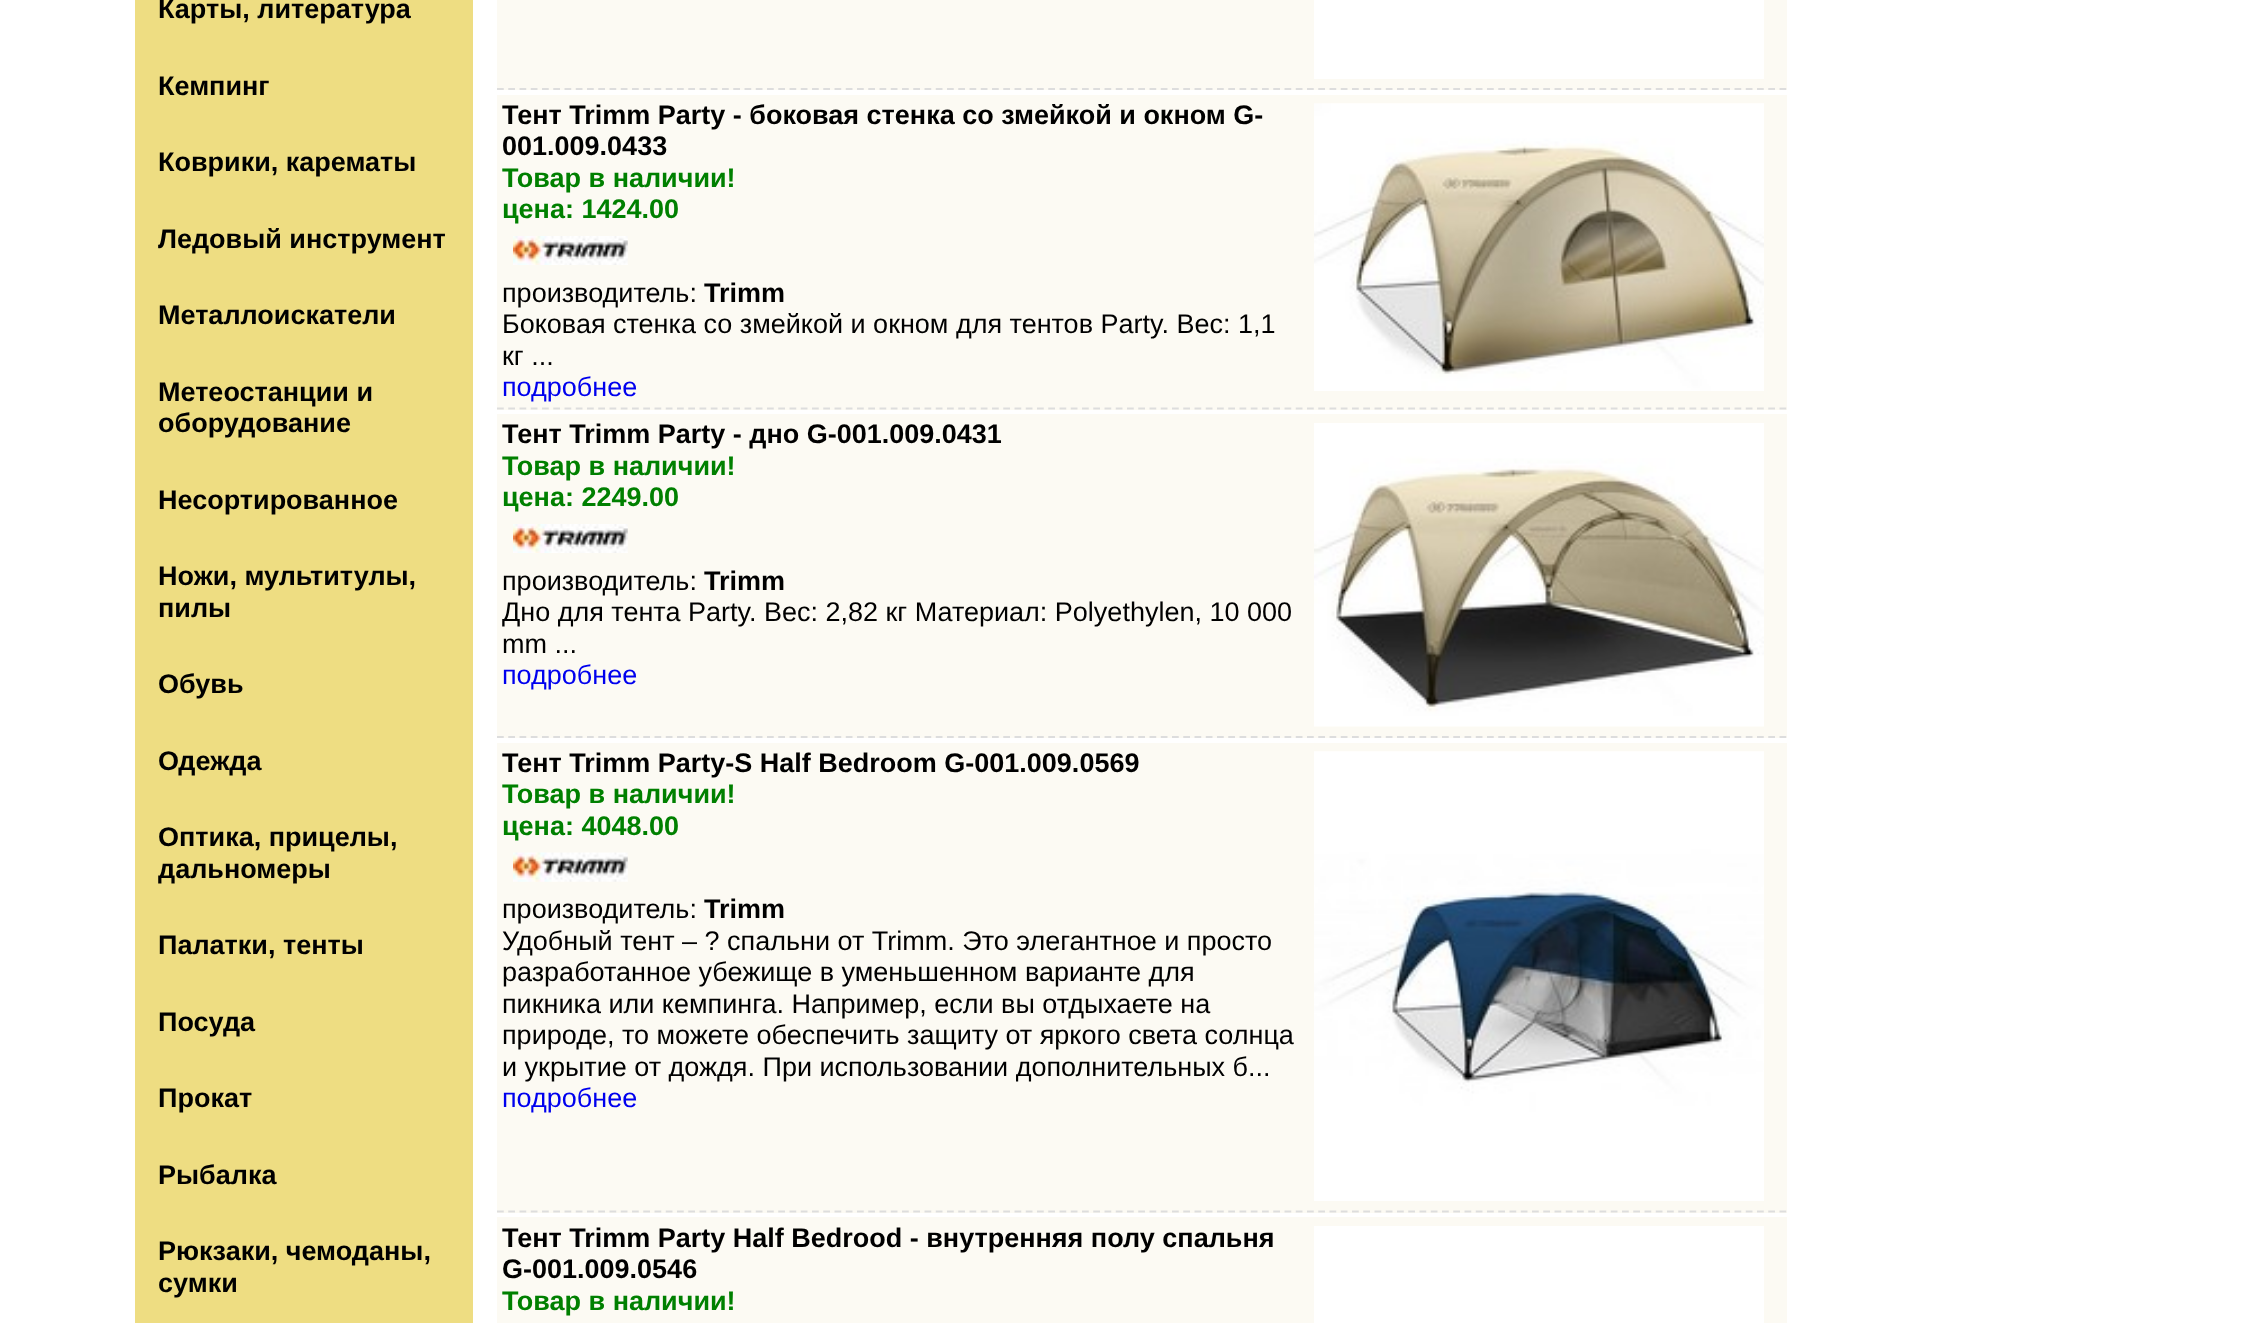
<?xml version="1.0" encoding="UTF-8"?>
<svg xmlns="http://www.w3.org/2000/svg" width="2247" height="1323">
    <rect width="100%" height="100%" fill="#FFFFFF"/>
    <rect x="135" y="0" width="338" height="1323" fill="#EEDD82"/>
    <text x="158" y="18" font-family="Liberation Sans" font-size="27" font-weight="700" fill="#000000">Карты, литература</text>
    <text x="158" y="95" font-family="Liberation Sans" font-size="27" font-weight="700" fill="#000000">Кемпинг</text>
    <text x="158" y="171" font-family="Liberation Sans" font-size="27" font-weight="700" fill="#000000">Коврики, карематы</text>
    <text x="158" y="248" font-family="Liberation Sans" font-size="27" font-weight="700" fill="#000000">Ледовый инструмент</text>
    <text x="158" y="324" font-family="Liberation Sans" font-size="27" font-weight="700" fill="#000000">Металлоискатели</text>
    <text font-family="Liberation Sans" font-size="27" font-weight="700" fill="#000000">
        <tspan x="158" y="401">Метеостанции и</tspan>
        <tspan x="158" y="432">оборудование</tspan>
    </text>
    <text x="158" y="509" font-family="Liberation Sans" font-size="27" font-weight="700" fill="#000000">Несортированное</text>
    <text font-family="Liberation Sans" font-size="27" font-weight="700" fill="#000000">
        <tspan x="158" y="585">Ножи, мультитулы,</tspan>
        <tspan x="158" y="617">пилы</tspan>
    </text>
    <text x="158" y="693" font-family="Liberation Sans" font-size="27" font-weight="700" fill="#000000">Обувь</text>
    <text x="158" y="770" font-family="Liberation Sans" font-size="27" font-weight="700" fill="#000000">Одежда</text>
    <text font-family="Liberation Sans" font-size="27" font-weight="700" fill="#000000">
        <tspan x="158" y="846">Оптика, прицелы,</tspan>
        <tspan x="158" y="878">дальномеры</tspan>
    </text>
    <text x="158" y="954" font-family="Liberation Sans" font-size="27" font-weight="700" fill="#000000">Палатки, тенты</text>
    <text x="158" y="1031" font-family="Liberation Sans" font-size="27" font-weight="700" fill="#000000">Посуда</text>
    <text x="158" y="1107" font-family="Liberation Sans" font-size="27" font-weight="700" fill="#000000">Прокат</text>
    <text x="158" y="1184" font-family="Liberation Sans" font-size="27" font-weight="700" fill="#000000">Рыбалка</text>
    <text font-family="Liberation Sans" font-size="27" font-weight="700" fill="#000000">
        <tspan x="158" y="1260">Рюкзаки, чемоданы,</tspan>
        <tspan x="158" y="1292">сумки</tspan>
    </text>
    <rect x="497" y="0" width="1290" height="90" fill="#FCFAF3"/>
    <path d="M 497 89 H 1786.5" fill="none" stroke="#DDDDDD" stroke-width="2.2" stroke-dasharray="6.75 4.5"/>
    <rect x="1314" y="0" width="450" height="79" fill="#FFFFFF"/>
    <rect x="497" y="95" width="1290" height="315" fill="#FCFAF3"/>
    <path d="M 497 408.5 H 1786.5" fill="none" stroke="#DDDDDD" stroke-width="2.2" stroke-dasharray="6.75 4.5"/>
    <text x="502" y="124" font-family="Liberation Sans" font-size="27" font-weight="700" fill="#000000">Тент Trimm Party - боковая стенка со змейкой и окном G-</text>
    <image x="1314" y="103" width="450" height="288" href="img_01.png"/>
    <text x="502" y="155" font-family="Liberation Sans" font-size="27" font-weight="700" fill="#000000">001.009.0433</text>
    <text font-family="Liberation Sans" font-size="27" font-weight="700" fill="#008000">
        <tspan x="502" y="187">Товар в наличии!</tspan>
        <tspan x="502" y="218">цена: 1424.00</tspan>
    </text>
    <image x="513" y="236" width="115" height="29" href="img_02.png"/>
    <text x="502" y="302" font-family="Liberation Sans" font-size="27" fill="#000000">производитель:</text>
    <text x="704" y="302" font-family="Liberation Sans" font-size="27" font-weight="700" fill="#000000">Trimm</text>
    <text font-family="Liberation Sans" font-size="27" fill="#000000">
        <tspan x="502" y="333">Боковая стенка со змейкой и окном для тентов Party. Вес: 1,1</tspan>
        <tspan x="502" y="365">кг ...</tspan>
    </text>
    <text x="502" y="396" font-family="Liberation Sans" font-size="27" fill="#0000EE">подробнее</text>
    <rect x="497" y="414" width="1290" height="324" fill="#FCFAF3"/>
    <path d="M 497 737 H 1786.5" fill="none" stroke="#DDDDDD" stroke-width="2.2" stroke-dasharray="6.75 4.5"/>
    <text x="502" y="443" font-family="Liberation Sans" font-size="27" font-weight="700" fill="#000000">Тент Trimm Party - дно G-001.009.0431</text>
    <image x="1314" y="423" width="450" height="304" href="img_03.png"/>
    <text font-family="Liberation Sans" font-size="27" font-weight="700" fill="#008000">
        <tspan x="502" y="475">Товар в наличии!</tspan>
        <tspan x="502" y="506">цена: 2249.00</tspan>
    </text>
    <image x="513" y="524" width="115" height="29" href="img_02.png"/>
    <text x="502" y="590" font-family="Liberation Sans" font-size="27" fill="#000000">производитель:</text>
    <text x="704" y="590" font-family="Liberation Sans" font-size="27" font-weight="700" fill="#000000">Trimm</text>
    <text font-family="Liberation Sans" font-size="27" fill="#000000">
        <tspan x="502" y="621">Дно для тента Party. Вес: 2,82 кг Материал: Polyethylen, 10 000</tspan>
        <tspan x="502" y="653">mm ...</tspan>
    </text>
    <text x="502" y="684" font-family="Liberation Sans" font-size="27" fill="#0000EE">подробнее</text>
    <rect x="497" y="743" width="1290" height="470" fill="#FCFAF3"/>
    <path d="M 497 1211.5 H 1786.5" fill="none" stroke="#DDDDDD" stroke-width="2.2" stroke-dasharray="6.75 4.5"/>
    <text x="502" y="772" font-family="Liberation Sans" font-size="27" font-weight="700" fill="#000000">Тент Trimm Party-S Half Bedroom G-001.009.0569</text>
    <image x="1314" y="751" width="450" height="450" href="img_04.png"/>
    <text font-family="Liberation Sans" font-size="27" font-weight="700" fill="#008000">
        <tspan x="502" y="803">Товар в наличии!</tspan>
        <tspan x="502" y="835">цена: 4048.00</tspan>
    </text>
    <image x="513" y="852" width="115" height="30" href="img_05.png"/>
    <text x="502" y="918" font-family="Liberation Sans" font-size="27" fill="#000000">производитель:</text>
    <text x="704" y="918" font-family="Liberation Sans" font-size="27" font-weight="700" fill="#000000">Trimm</text>
    <text font-family="Liberation Sans" font-size="27" fill="#000000">
        <tspan x="502" y="950">Удобный тент – ? спальни от Trimm. Это элегантное и просто</tspan>
        <tspan x="502" y="981">разработанное убежище в уменьшенном варианте для</tspan>
        <tspan x="502" y="1013">пикника или кемпинга. Например, если вы отдыхаете на</tspan>
        <tspan x="502" y="1044">природе, то можете обеспечить защиту от яркого света солнца</tspan>
        <tspan x="502" y="1076">и укрытие от дождя. При использовании дополнительных б...</tspan>
    </text>
    <text x="502" y="1107" font-family="Liberation Sans" font-size="27" fill="#0000EE">подробнее</text>
    <rect x="497" y="1217" width="1290" height="106" fill="#FCFAF3"/>
    <text x="502" y="1247" font-family="Liberation Sans" font-size="27" font-weight="700" fill="#000000">Тент Trimm Party Half Bedrood - внутренняя полу спальня</text>
    <rect x="1314" y="1226" width="450" height="97" fill="#FFFFFF"/>
    <text x="502" y="1278" font-family="Liberation Sans" font-size="27" font-weight="700" fill="#000000">G-001.009.0546</text>
    <text x="502" y="1310" font-family="Liberation Sans" font-size="27" font-weight="700" fill="#008000">Товар в наличии!</text>
</svg>
